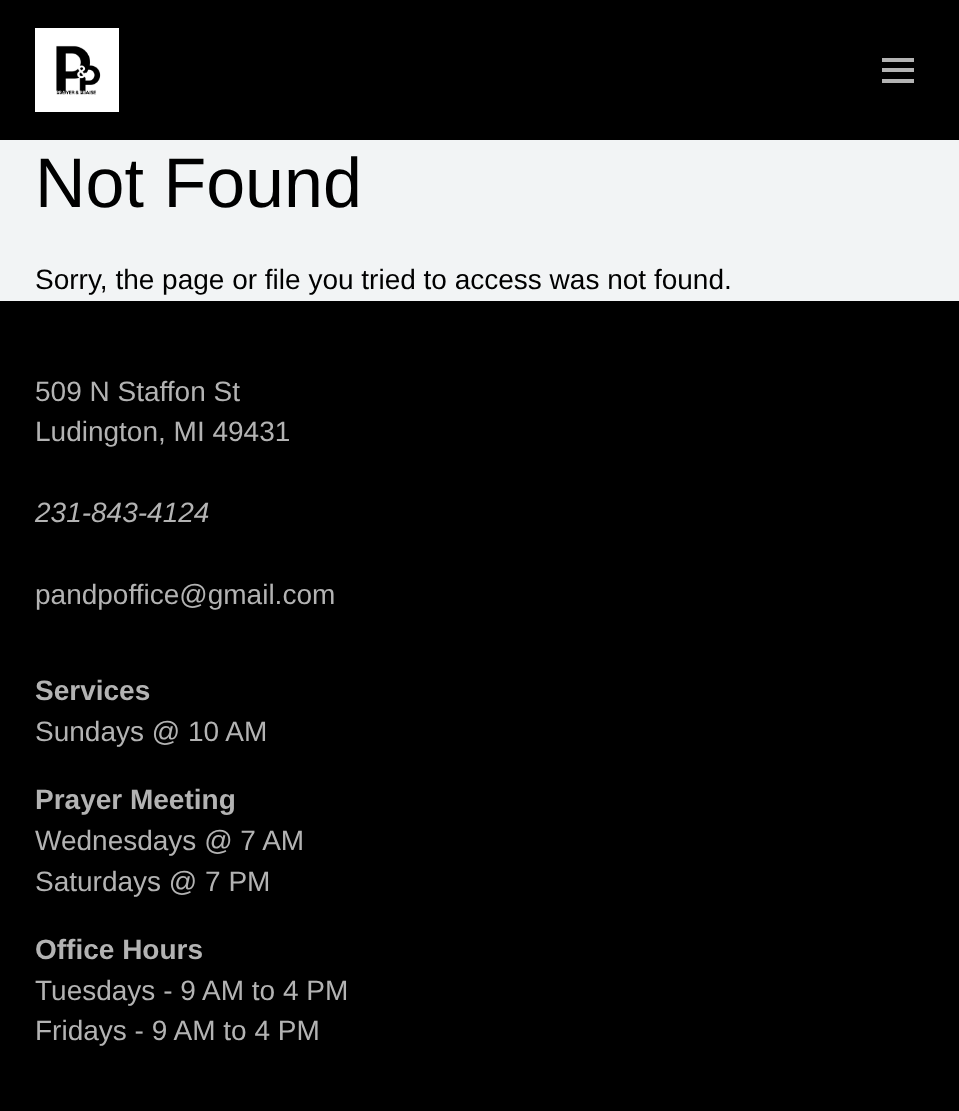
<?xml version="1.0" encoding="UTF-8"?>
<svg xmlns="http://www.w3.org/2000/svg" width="959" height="1111">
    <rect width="100%" height="100%" fill="#F2F4F5"/>
    <rect x="0" y="0" width="959" height="140" fill="#000000"/>
    <image x="35" y="28" width="84" height="84" href="img_01.png"/>
    <rect x="882" y="79" width="32" height="4" fill="#B3B3B3"/>
    <rect x="882" y="68" width="32" height="4" fill="#B3B3B3"/>
    <rect x="882" y="58" width="32" height="4" fill="#B3B3B3"/>
    <text x="35" y="207" font-family="Liberation Sans" font-size="70" fill="#000000">Not Found</text>
    <text x="35" y="289" font-family="Liberation Sans" font-size="28" fill="#000000">Sorry, the page or file you tried to access was not found.</text>
    <rect x="0" y="301" width="959" height="810" fill="#000000"/>
    <text font-family="Liberation Sans" font-size="28" fill="#B3B3B3">
        <tspan x="35" y="401">509 N Staffon St</tspan>
        <tspan x="35" y="441">Ludington, MI 49431</tspan>
    </text>
    <text x="35" y="522" font-family="Liberation Sans" font-size="28" font-style="italic" fill="#B3B3B3">231-843-4124</text>
    <text x="35" y="604" font-family="Liberation Sans" font-size="28" fill="#B3B3B3">pandpoffice@gmail.com</text>
    <text x="35" y="700" font-family="Liberation Sans" font-size="28" font-weight="700" fill="#B3B3B3">Services</text>
    <text x="35" y="741" font-family="Liberation Sans" font-size="28" fill="#B3B3B3">Sundays @ 10 AM</text>
    <text x="35" y="809" font-family="Liberation Sans" font-size="28" font-weight="700" fill="#B3B3B3">Prayer Meeting</text>
    <text font-family="Liberation Sans" font-size="28" fill="#B3B3B3">
        <tspan x="35" y="850">Wednesdays @ 7 AM</tspan>
        <tspan x="35" y="891">Saturdays @ 7 PM</tspan>
    </text>
    <text x="35" y="959" font-family="Liberation Sans" font-size="28" font-weight="700" fill="#B3B3B3">Office Hours</text>
    <text font-family="Liberation Sans" font-size="28" fill="#B3B3B3">
        <tspan x="35" y="1000">Tuesdays - 9 AM to 4 PM</tspan>
        <tspan x="35" y="1040">Fridays - 9 AM to 4 PM</tspan>
    </text>
</svg>
